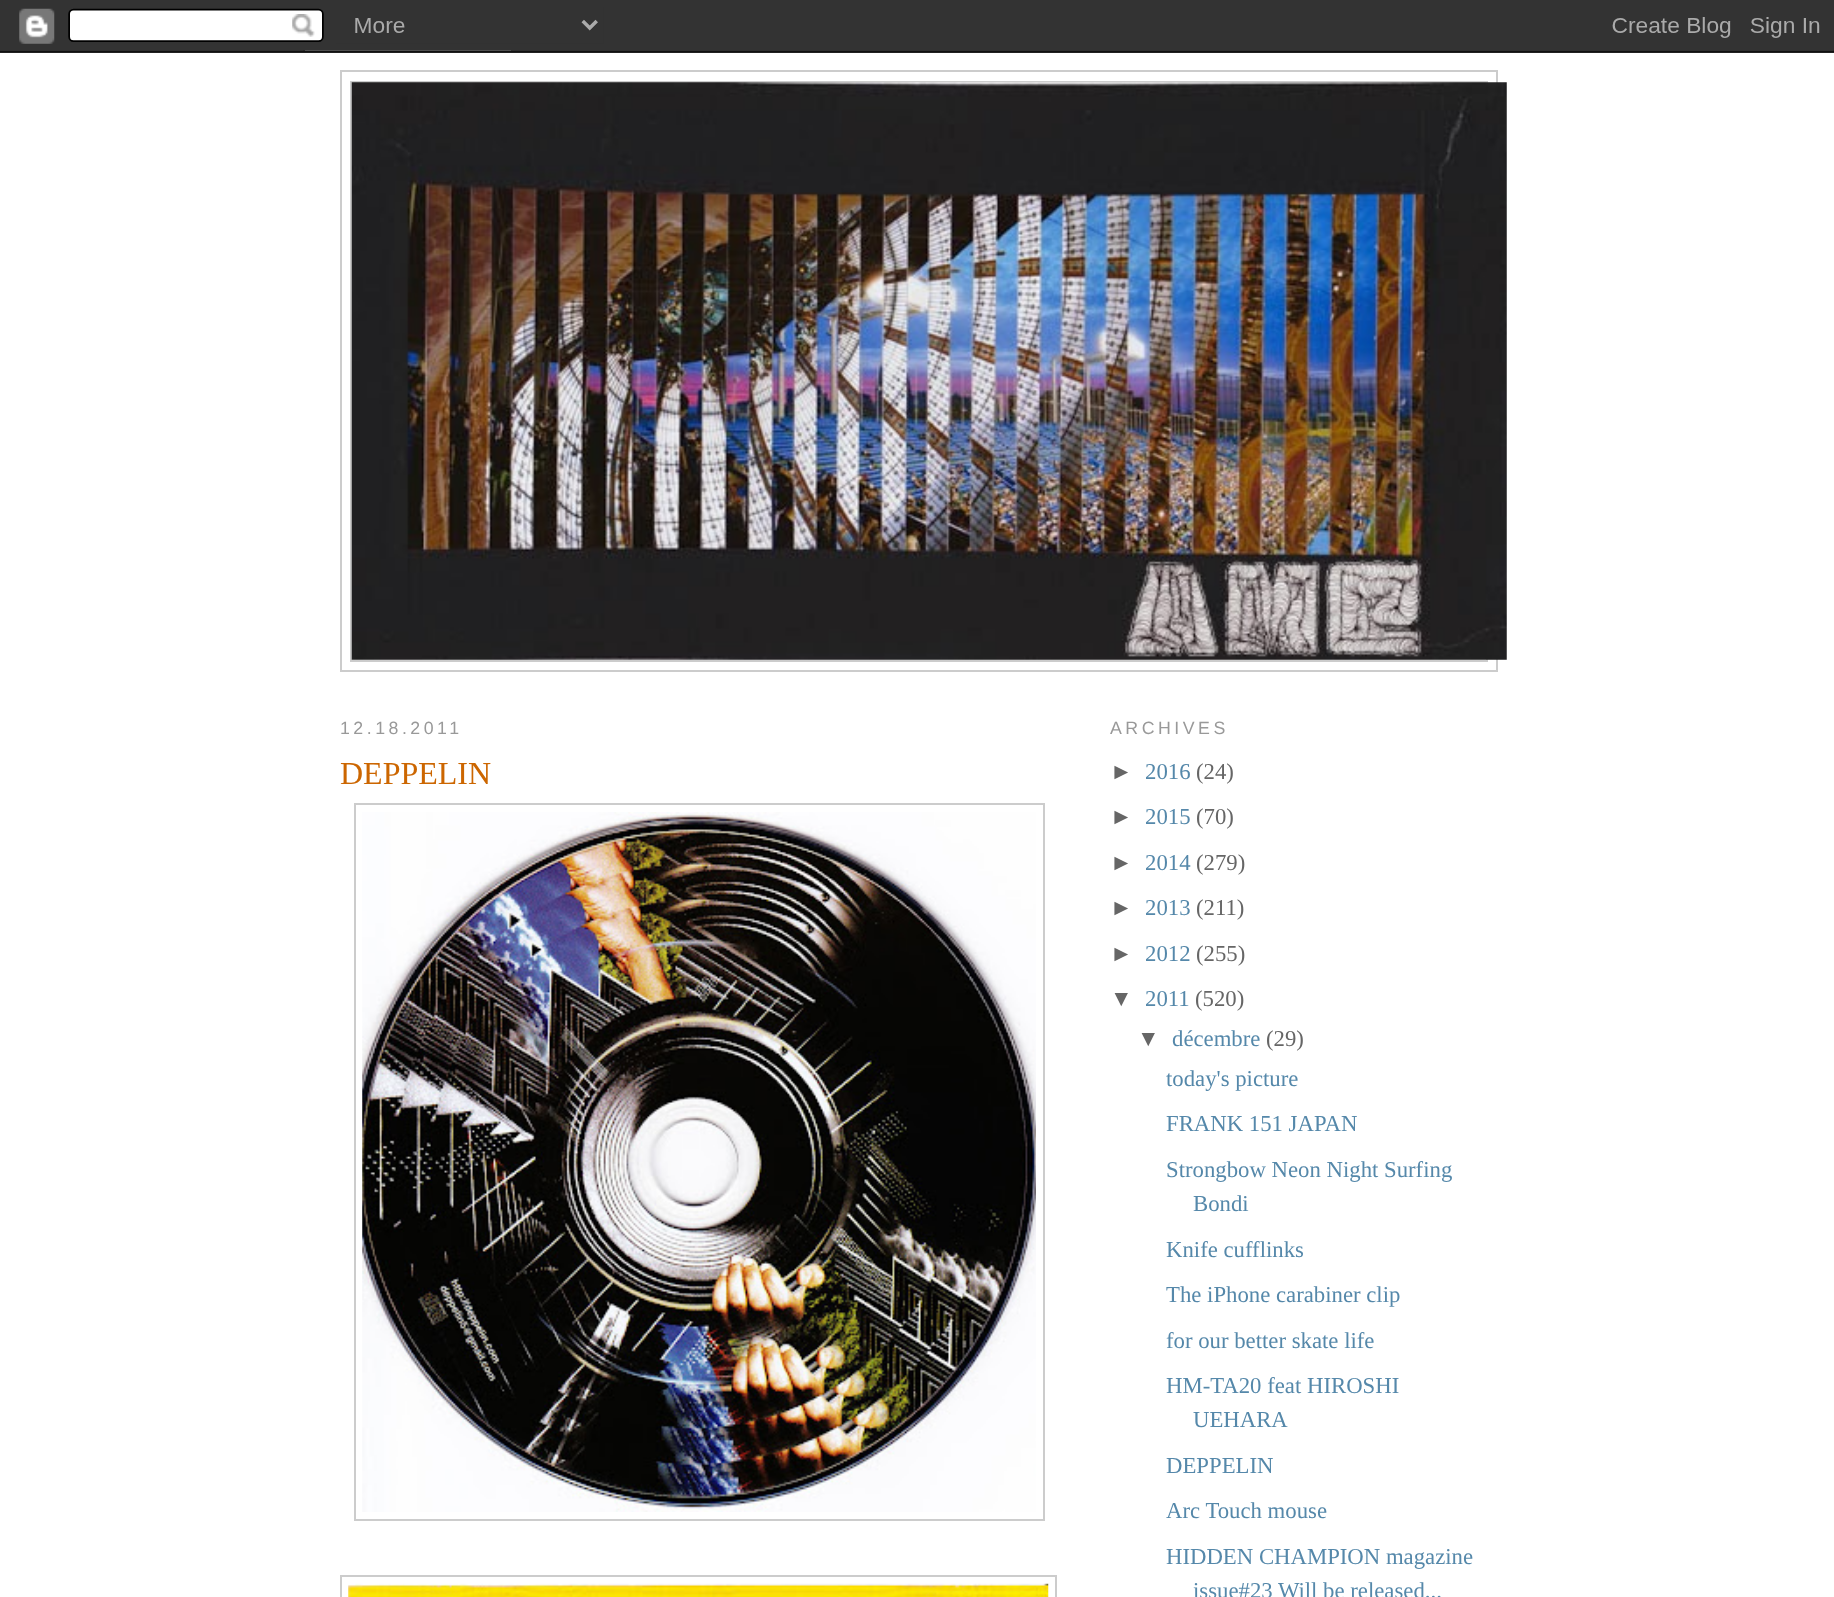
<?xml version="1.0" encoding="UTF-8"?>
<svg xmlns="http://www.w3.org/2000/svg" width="1834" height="1597">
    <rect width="100%" height="100%" fill="#FFFFFF"/>
    <image x="0" y="0" width="1834" height="53" href="img_01.png"/>
    <rect x="341" y="71" width="1156" height="600" fill="none" stroke="#CCCCCC" stroke-width="2"/>
    <rect x="351" y="82" width="1136" height="579" fill="none" stroke="#CCCCCC" stroke-width="2"/>
    <image x="351" y="82" width="1156" height="578" href="img_02.png"/>
    <text x="340" y="734" font-family="Liberation Sans" font-size="17.75" letter-spacing="3.5" fill="#999999">12.18.2011</text>
    <text x="340" y="784" font-family="Liberation Serif" font-size="32" fill="#CC6600">DEPPELIN</text>
    <rect x="355" y="804" width="689" height="716" fill="none" stroke="#CCCCCC" stroke-width="2"/>
    <image x="362" y="812" width="674" height="700" href="img_03.png"/>
    <rect x="341" y="1576" width="715" height="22" fill="none" stroke="#CCCCCC" stroke-width="2"/>
    <image x="348" y="1583" width="701" height="14" href="img_04.png"/>
    <text x="1110" y="734" font-family="Liberation Sans" font-size="17.75" letter-spacing="3.5" fill="#999999">ARCHIVES</text>
    <text x="1110" y="779" font-family="Liberation Sans" font-size="22.75" fill="#666666">►</text>
    <text x="1145" y="779" font-family="Liberation Serif" font-size="22.75" fill="#5588AA">2016</text>
    <text x="1196" y="779" font-family="Liberation Serif" font-size="22.75" fill="#666666">(24)</text>
    <text x="1110" y="824" font-family="Liberation Sans" font-size="22.75" fill="#666666">►</text>
    <text x="1145" y="824" font-family="Liberation Serif" font-size="22.75" fill="#5588AA">2015</text>
    <text x="1196" y="824" font-family="Liberation Serif" font-size="22.75" fill="#666666">(70)</text>
    <text x="1110" y="870" font-family="Liberation Sans" font-size="22.75" fill="#666666">►</text>
    <text x="1145" y="870" font-family="Liberation Serif" font-size="22.75" fill="#5588AA">2014</text>
    <text x="1196" y="870" font-family="Liberation Serif" font-size="22.75" fill="#666666">(279)</text>
    <text x="1110" y="915" font-family="Liberation Sans" font-size="22.75" fill="#666666">►</text>
    <text x="1145" y="915" font-family="Liberation Serif" font-size="22.75" fill="#5588AA">2013</text>
    <text x="1196" y="915" font-family="Liberation Serif" font-size="22.75" fill="#666666">(211)</text>
    <text x="1110" y="961" font-family="Liberation Sans" font-size="22.75" fill="#666666">►</text>
    <text x="1145" y="961" font-family="Liberation Serif" font-size="22.75" fill="#5588AA">2012</text>
    <text x="1196" y="961" font-family="Liberation Serif" font-size="22.75" fill="#666666">(255)</text>
    <text x="1110" y="1006" font-family="Liberation Sans" font-size="22.75" fill="#666666">▼</text>
    <text x="1145" y="1006" font-family="Liberation Serif" font-size="22.75" fill="#5588AA">2011</text>
    <text x="1195" y="1006" font-family="Liberation Serif" font-size="22.75" fill="#666666">(520)</text>
    <text x="1137" y="1046" font-family="Liberation Sans" font-size="22.75" fill="#666666">▼</text>
    <text x="1172" y="1046" font-family="Liberation Serif" font-size="22.75" fill="#5588AA">décembre</text>
    <text x="1266" y="1046" font-family="Liberation Serif" font-size="22.75" fill="#666666">(29)</text>
    <text font-family="Liberation Serif" font-size="22.75" fill="#5588AA">
        <tspan x="1166" y="1086">today's picture</tspan>
        <tspan x="1166" y="1131">FRANK 151 JAPAN</tspan>
    </text>
    <text x="1166" y="1177" font-family="Liberation Serif" font-size="22.75" fill="#5588AA">Strongbow Neon Night Surfing</text>
    <text x="1193" y="1211" font-family="Liberation Serif" font-size="22.75" fill="#5588AA">Bondi</text>
    <text font-family="Liberation Serif" font-size="22.75" fill="#5588AA">
        <tspan x="1166" y="1257">Knife cufflinks</tspan>
        <tspan x="1166" y="1302">The iPhone carabiner clip</tspan>
    </text>
    <text font-family="Liberation Serif" font-size="22.75" fill="#5588AA">
        <tspan x="1166" y="1348">for our better skate life</tspan>
        <tspan x="1166" y="1393">HM-TA20 feat HIROSHI</tspan>
    </text>
    <text x="1193" y="1427" font-family="Liberation Serif" font-size="22.75" fill="#5588AA">UEHARA</text>
    <text font-family="Liberation Serif" font-size="22.75" fill="#5588AA">
        <tspan x="1166" y="1473">DEPPELIN</tspan>
        <tspan x="1166" y="1518">Arc Touch mouse</tspan>
    </text>
    <text x="1166" y="1564" font-family="Liberation Serif" font-size="22.75" fill="#5588AA">HIDDEN CHAMPION magazine</text>
    <text x="1193" y="1598" font-family="Liberation Serif" font-size="22.75" fill="#5588AA">issue#23 Will be released...</text>
</svg>
